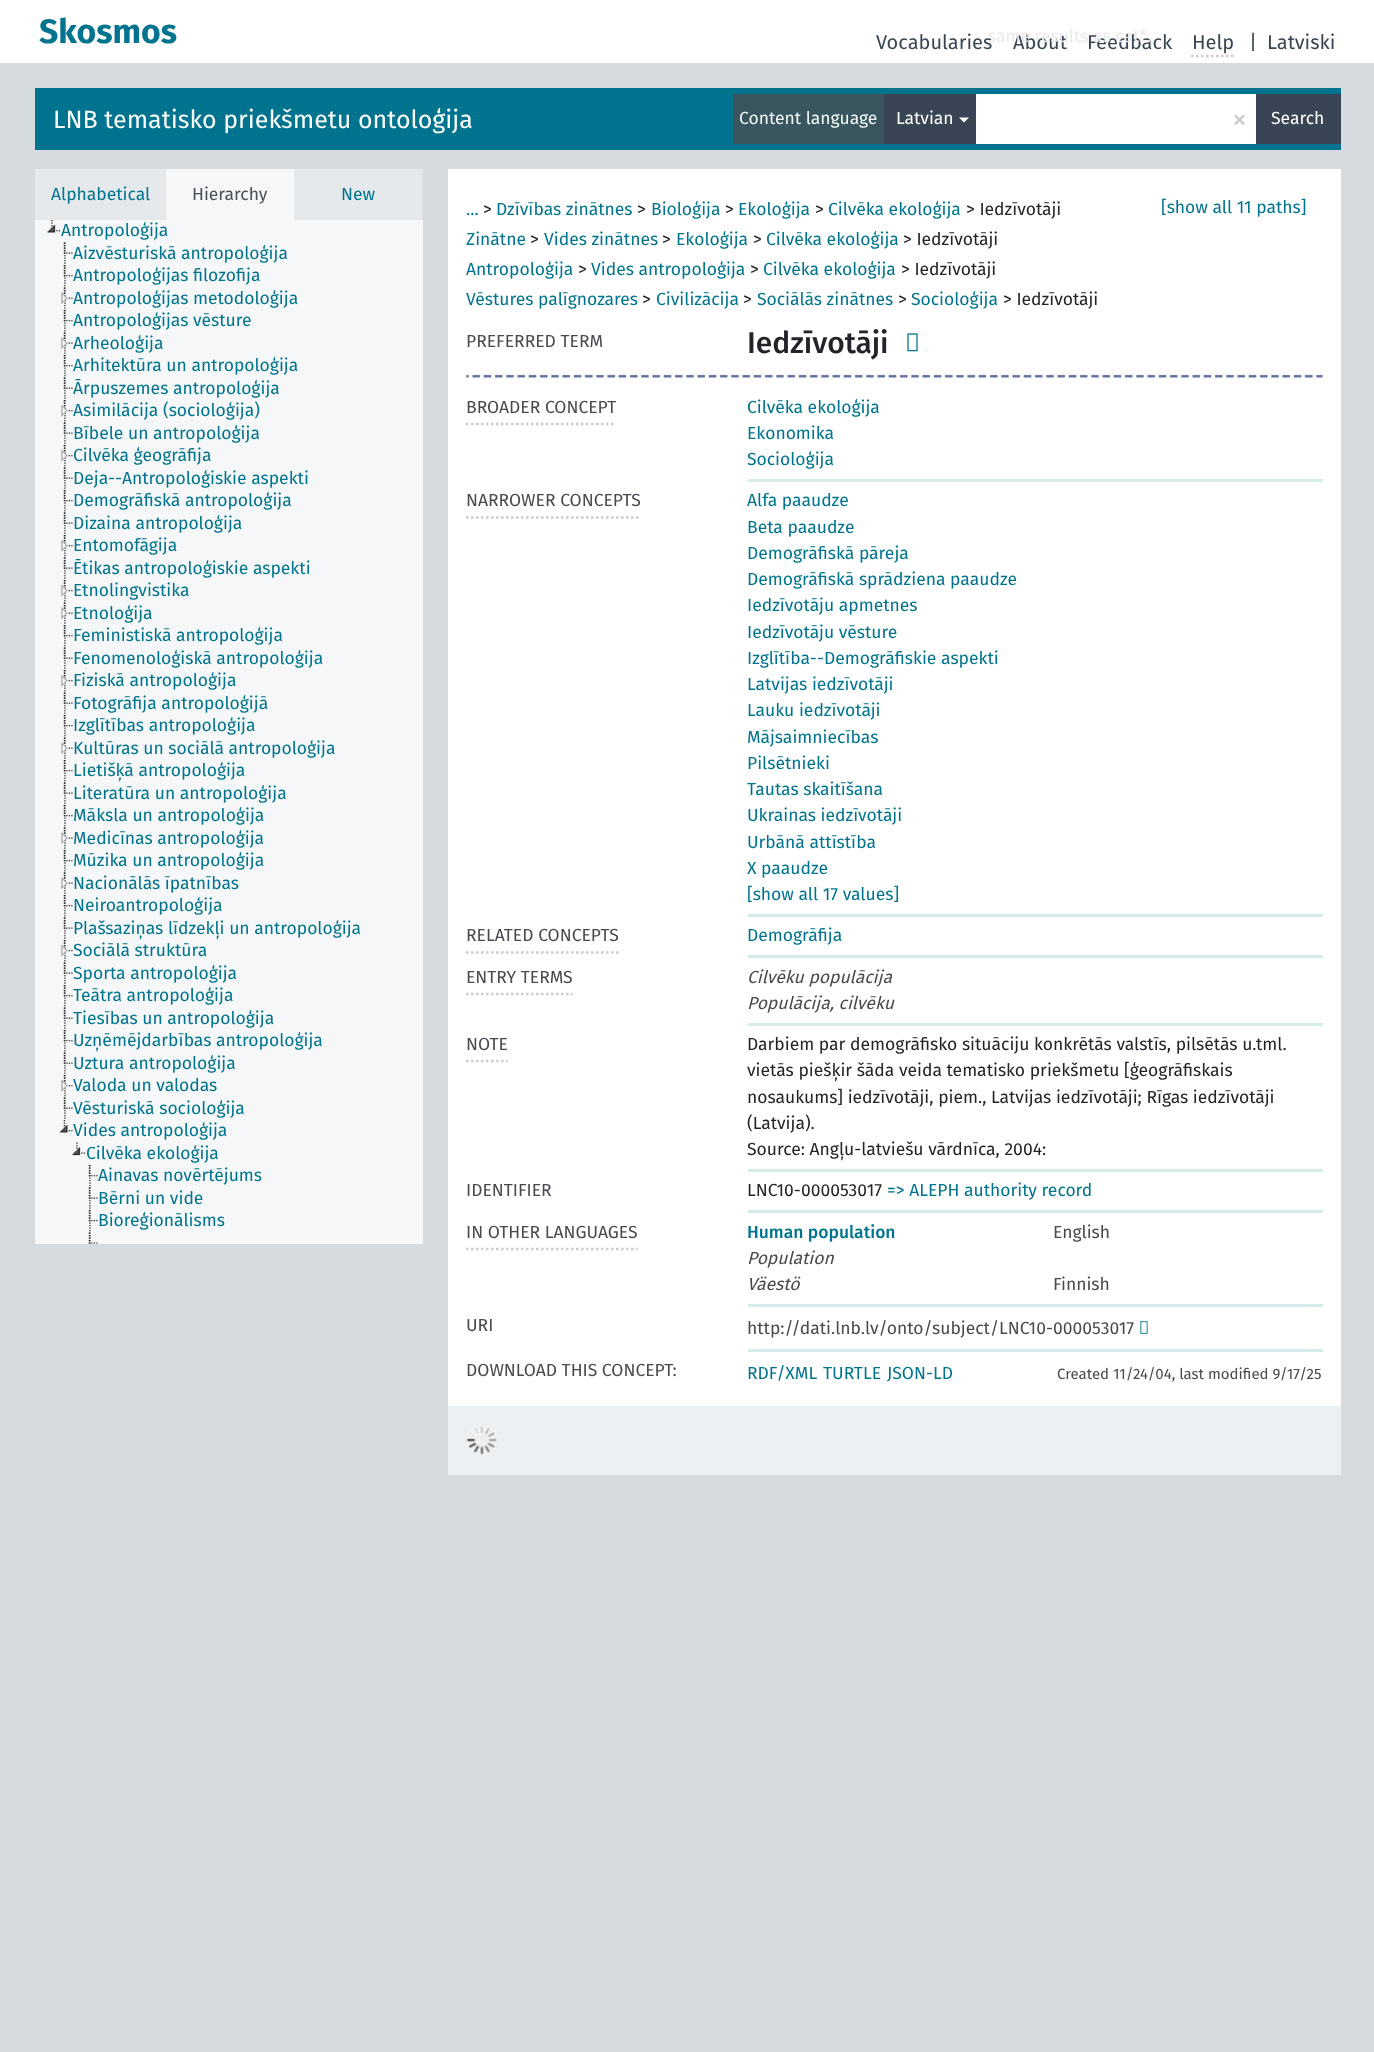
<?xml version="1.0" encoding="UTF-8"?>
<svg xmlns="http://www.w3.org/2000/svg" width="1374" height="2052">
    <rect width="100%" height="100%" fill="#D5DBDE"/>
    <rect x="0" y="0" width="1374" height="63" fill="#FFFFFF"/>
    <text x="39" y="43" font-family="Fira Sans" font-size="33.75" font-weight="700" fill="#00748F">Skosmos</text>
    <text x="876" y="49" font-family="Fira Sans" font-size="20" fill="#394554">Vocabularies</text>
    <text x="1013" y="49" font-family="Fira Sans" font-size="20" fill="#394554">About</text>
    <text x="1087" y="49" font-family="Fira Sans" font-size="20" fill="#394554">Feedback</text>
    <text x="988" y="42" font-family="Fira Sans" font-size="17.5" fill="#E8EAEB">same results as cat*.</text>
    <text x="1192" y="49" font-family="Fira Sans" font-size="20" fill="#394554">Help</text>
    <path d="M 1191 56 H 1234" fill="none" stroke="#CCCCCC" stroke-width="2.5" stroke-dasharray="2.5 2.5"/>
    <text x="1249" y="49" font-family="Fira Sans" font-size="20" fill="#394554">|</text>
    <text x="1267" y="49" font-family="Fira Sans" font-size="20" fill="#394554">Latviski</text>
    <rect x="35" y="88" width="1306" height="62" fill="#00748F"/>
    <text x="53" y="128" font-family="Fira Sans" font-size="25" fill="#FCFEFE">LNB tematisko priekšmetu ontoloģija</text>
    <rect x="733" y="94" width="151" height="50" fill="#39555E"/>
    <text x="739" y="124" font-family="Fira Sans" font-size="17.5" fill="#F2F8F9">Content language</text>
    <rect x="884" y="94" width="92" height="50" fill="#394554"/>
    <text x="896" y="124" font-family="Fira Sans" font-size="17.5" fill="#FCFEFE">Latvian</text>
    <path d="M 959 117.5 H 969 L 964 122.5 Z" fill="#FFFFFF"/>
    <rect x="976" y="94" width="280" height="50" fill="#FFFFFF"/>
    <text x="1232" y="129" font-family="Fira Sans" font-size="30" fill="#CCCCCC">×</text>
    <rect x="1256" y="94" width="85" height="50" fill="#394554"/>
    <text x="1271" y="124" font-family="Fira Sans" font-size="17.5" fill="#FCFEFE">Search</text>
    <rect x="421" y="169" width="2" height="51" fill="#E0E4E7"/>
    <rect x="35" y="169" width="131" height="51" fill="#E6E9EB"/>
    <text x="51" y="200" font-family="Fira Sans" font-size="17.5" fill="#00748F">Alphabetical</text>
    <rect x="166" y="169" width="128" height="51" fill="#F6F7F8"/>
    <text x="192" y="200" font-family="Fira Sans" font-size="17.5" fill="#495057">Hierarchy</text>
    <rect x="294" y="169" width="127" height="51" fill="#E6E9EB"/>
    <text x="341" y="200" font-family="Fira Sans" font-size="17.5" fill="#00748F">New</text>
    <rect x="35" y="220" width="388" height="1024" fill="#F6F7F8"/>
    <image x="47" y="220" width="13" height="13" href="img_01.png"/>
    <text x="61" y="236" font-family="Fira Sans" font-size="17.5" fill="#00748F">Antropoloģija</text>
    <image x="64" y="242" width="2" height="22" href="img_02.png"/>
    <image x="63" y="242" width="10" height="12" href="img_03.png"/>
    <text x="73" y="259" font-family="Fira Sans" font-size="17.5" fill="#00748F">Aizvēsturiskā antropoloģija</text>
    <image x="64" y="265" width="2" height="22" href="img_04.png"/>
    <image x="63" y="265" width="10" height="12" href="img_05.png"/>
    <text x="73" y="281" font-family="Fira Sans" font-size="17.5" fill="#00748F">Antropoloģijas filozofija</text>
    <image x="64" y="287" width="2" height="22" href="img_06.png"/>
    <image x="61" y="287" width="12" height="17" href="img_07.png"/>
    <text x="73" y="304" font-family="Fira Sans" font-size="17.5" fill="#00748F">Antropoloģijas metodoloģija</text>
    <image x="64" y="310" width="2" height="22" href="img_04.png"/>
    <image x="63" y="310" width="10" height="12" href="img_05.png"/>
    <text x="73" y="326" font-family="Fira Sans" font-size="17.5" fill="#00748F">Antropoloģijas vēsture</text>
    <image x="64" y="332" width="2" height="22" href="img_02.png"/>
    <image x="61" y="332" width="12" height="17" href="img_08.png"/>
    <text x="73" y="349" font-family="Fira Sans" font-size="17.5" fill="#00748F">Arheoloģija</text>
    <image x="64" y="355" width="2" height="22" href="img_04.png"/>
    <image x="63" y="355" width="10" height="12" href="img_05.png"/>
    <text x="73" y="371" font-family="Fira Sans" font-size="17.5" fill="#00748F">Arhitektūra un antropoloģija</text>
    <image x="64" y="377" width="2" height="22" href="img_02.png"/>
    <image x="63" y="377" width="10" height="12" href="img_03.png"/>
    <text x="73" y="394" font-family="Fira Sans" font-size="17.5" fill="#00748F">Ārpuszemes antropoloģija</text>
    <image x="64" y="400" width="2" height="22" href="img_04.png"/>
    <image x="61" y="400" width="12" height="17" href="img_09.png"/>
    <text x="73" y="416" font-family="Fira Sans" font-size="17.5" fill="#00748F">Asimilācija (socioloģija)</text>
    <image x="64" y="422" width="2" height="22" href="img_02.png"/>
    <image x="63" y="422" width="10" height="12" href="img_03.png"/>
    <text x="73" y="439" font-family="Fira Sans" font-size="17.5" fill="#00748F">Bībele un antropoloģija</text>
    <image x="64" y="445" width="2" height="22" href="img_04.png"/>
    <image x="61" y="445" width="12" height="17" href="img_09.png"/>
    <text x="73" y="461" font-family="Fira Sans" font-size="17.5" fill="#00748F">Cilvēka ģeogrāfija</text>
    <image x="64" y="467" width="2" height="22" href="img_02.png"/>
    <image x="63" y="467" width="10" height="12" href="img_03.png"/>
    <text x="73" y="484" font-family="Fira Sans" font-size="17.5" fill="#00748F">Deja--Antropoloģiskie aspekti</text>
    <image x="64" y="490" width="2" height="22" href="img_04.png"/>
    <image x="63" y="490" width="10" height="12" href="img_05.png"/>
    <text x="73" y="506" font-family="Fira Sans" font-size="17.5" fill="#00748F">Demogrāfiskā antropoloģija</text>
    <image x="64" y="512" width="2" height="22" href="img_10.png"/>
    <image x="63" y="512" width="10" height="12" href="img_11.png"/>
    <text x="73" y="529" font-family="Fira Sans" font-size="17.5" fill="#00748F">Dizaina antropoloģija</text>
    <image x="64" y="535" width="2" height="22" href="img_04.png"/>
    <image x="61" y="535" width="12" height="17" href="img_09.png"/>
    <text x="73" y="551" font-family="Fira Sans" font-size="17.5" fill="#00748F">Entomofāgija</text>
    <image x="64" y="557" width="2" height="22" href="img_02.png"/>
    <image x="63" y="557" width="10" height="12" href="img_03.png"/>
    <text x="73" y="574" font-family="Fira Sans" font-size="17.5" fill="#00748F">Ētikas antropoloģiskie aspekti</text>
    <image x="64" y="580" width="2" height="22" href="img_12.png"/>
    <image x="61" y="580" width="12" height="17" href="img_13.png"/>
    <text x="73" y="596" font-family="Fira Sans" font-size="17.5" fill="#00748F">Etnolingvistika</text>
    <image x="64" y="602" width="2" height="22" href="img_02.png"/>
    <image x="61" y="602" width="12" height="17" href="img_08.png"/>
    <text x="73" y="619" font-family="Fira Sans" font-size="17.5" fill="#00748F">Etnoloģija</text>
    <image x="64" y="625" width="2" height="22" href="img_04.png"/>
    <image x="63" y="625" width="10" height="12" href="img_05.png"/>
    <text x="73" y="641" font-family="Fira Sans" font-size="17.5" fill="#00748F">Feministiskā antropoloģija</text>
    <image x="64" y="647" width="2" height="22" href="img_02.png"/>
    <image x="63" y="647" width="10" height="12" href="img_03.png"/>
    <text x="73" y="664" font-family="Fira Sans" font-size="17.5" fill="#00748F">Fenomenoloģiskā antropoloģija</text>
    <image x="64" y="670" width="2" height="22" href="img_04.png"/>
    <image x="61" y="670" width="12" height="17" href="img_09.png"/>
    <text x="73" y="686" font-family="Fira Sans" font-size="17.5" fill="#00748F">Fiziskā antropoloģija</text>
    <image x="64" y="692" width="2" height="22" href="img_02.png"/>
    <image x="63" y="692" width="10" height="12" href="img_03.png"/>
    <text x="73" y="709" font-family="Fira Sans" font-size="17.5" fill="#00748F">Fotogrāfija antropoloģijā</text>
    <image x="64" y="715" width="2" height="22" href="img_04.png"/>
    <image x="63" y="715" width="10" height="12" href="img_05.png"/>
    <text x="73" y="731" font-family="Fira Sans" font-size="17.5" fill="#00748F">Izglītības antropoloģija</text>
    <image x="64" y="737" width="2" height="22" href="img_02.png"/>
    <image x="61" y="737" width="12" height="17" href="img_08.png"/>
    <text x="73" y="754" font-family="Fira Sans" font-size="17.5" fill="#00748F">Kultūras un sociālā antropoloģija</text>
    <image x="64" y="760" width="2" height="22" href="img_04.png"/>
    <image x="63" y="760" width="10" height="12" href="img_05.png"/>
    <text x="73" y="776" font-family="Fira Sans" font-size="17.5" fill="#00748F">Lietišķā antropoloģija</text>
    <image x="64" y="782" width="2" height="22" href="img_02.png"/>
    <image x="63" y="782" width="10" height="12" href="img_03.png"/>
    <text x="73" y="799" font-family="Fira Sans" font-size="17.5" fill="#00748F">Literatūra un antropoloģija</text>
    <image x="64" y="805" width="2" height="22" href="img_04.png"/>
    <image x="63" y="805" width="10" height="12" href="img_05.png"/>
    <text x="73" y="821" font-family="Fira Sans" font-size="17.5" fill="#00748F">Māksla un antropoloģija</text>
    <image x="64" y="827" width="2" height="22" href="img_02.png"/>
    <image x="61" y="827" width="12" height="17" href="img_08.png"/>
    <text x="73" y="844" font-family="Fira Sans" font-size="17.5" fill="#00748F">Medicīnas antropoloģija</text>
    <image x="64" y="850" width="2" height="22" href="img_04.png"/>
    <image x="63" y="850" width="10" height="12" href="img_05.png"/>
    <text x="73" y="866" font-family="Fira Sans" font-size="17.5" fill="#00748F">Mūzika un antropoloģija</text>
    <image x="64" y="872" width="2" height="22" href="img_02.png"/>
    <image x="61" y="872" width="12" height="17" href="img_08.png"/>
    <text x="73" y="889" font-family="Fira Sans" font-size="17.5" fill="#00748F">Nacionālās īpatnības</text>
    <image x="64" y="895" width="2" height="22" href="img_04.png"/>
    <image x="63" y="895" width="10" height="12" href="img_05.png"/>
    <text x="73" y="911" font-family="Fira Sans" font-size="17.5" fill="#00748F">Neiroantropoloģija</text>
    <image x="64" y="917" width="2" height="22" href="img_02.png"/>
    <image x="63" y="917" width="10" height="12" href="img_03.png"/>
    <text x="73" y="934" font-family="Fira Sans" font-size="17.5" fill="#00748F">Plašsaziņas līdzekļi un antropoloģija</text>
    <image x="64" y="940" width="2" height="22" href="img_04.png"/>
    <image x="61" y="940" width="12" height="17" href="img_09.png"/>
    <text x="73" y="956" font-family="Fira Sans" font-size="17.5" fill="#00748F">Sociālā struktūra</text>
    <image x="64" y="962" width="2" height="22" href="img_02.png"/>
    <image x="63" y="962" width="10" height="12" href="img_03.png"/>
    <text x="73" y="979" font-family="Fira Sans" font-size="17.5" fill="#00748F">Sporta antropoloģija</text>
    <image x="64" y="985" width="2" height="22" href="img_04.png"/>
    <image x="63" y="985" width="10" height="12" href="img_05.png"/>
    <text x="73" y="1001" font-family="Fira Sans" font-size="17.5" fill="#00748F">Teātra antropoloģija</text>
    <image x="64" y="1007" width="2" height="22" href="img_02.png"/>
    <image x="63" y="1007" width="10" height="12" href="img_03.png"/>
    <text x="73" y="1024" font-family="Fira Sans" font-size="17.5" fill="#00748F">Tiesības un antropoloģija</text>
    <image x="64" y="1030" width="2" height="22" href="img_04.png"/>
    <image x="63" y="1030" width="10" height="12" href="img_05.png"/>
    <text x="73" y="1046" font-family="Fira Sans" font-size="17.5" fill="#00748F">Uzņēmējdarbības antropoloģija</text>
    <image x="64" y="1052" width="2" height="22" href="img_02.png"/>
    <image x="63" y="1052" width="10" height="12" href="img_03.png"/>
    <text x="73" y="1069" font-family="Fira Sans" font-size="17.5" fill="#00748F">Uztura antropoloģija</text>
    <image x="64" y="1075" width="2" height="22" href="img_04.png"/>
    <image x="61" y="1075" width="12" height="17" href="img_09.png"/>
    <text x="73" y="1091" font-family="Fira Sans" font-size="17.5" fill="#00748F">Valoda un valodas</text>
    <image x="64" y="1097" width="2" height="22" href="img_02.png"/>
    <image x="63" y="1097" width="10" height="12" href="img_03.png"/>
    <text x="73" y="1114" font-family="Fira Sans" font-size="17.5" fill="#00748F">Vēsturiskā socioloģija</text>
    <image x="59" y="1120" width="14" height="13" href="img_14.png"/>
    <text x="73" y="1136" font-family="Fira Sans" font-size="17.5" fill="#00748F">Vides antropoloģija</text>
    <image x="72" y="1142" width="13" height="14" href="img_15.png"/>
    <text x="86" y="1159" font-family="Fira Sans" font-size="17.5" fill="#00748F">Cilvēka ekoloģija</text>
    <image x="89" y="1165" width="2" height="22" href="img_12.png"/>
    <image x="88" y="1165" width="10" height="12" href="img_05.png"/>
    <text x="98" y="1181" font-family="Fira Sans" font-size="17.5" fill="#00748F">Ainavas novērtējums</text>
    <image x="89" y="1187" width="2" height="22" href="img_02.png"/>
    <image x="88" y="1187" width="10" height="12" href="img_03.png"/>
    <text x="98" y="1204" font-family="Fira Sans" font-size="17.5" fill="#00748F">Bērni un vide</text>
    <image x="89" y="1210" width="2" height="22" href="img_04.png"/>
    <image x="88" y="1210" width="10" height="12" href="img_05.png"/>
    <text x="98" y="1226" font-family="Fira Sans" font-size="17.5" fill="#00748F">Bioreģionālisms</text>
    <image x="89" y="1232" width="2" height="12" href="img_16.png"/>
    <image x="88" y="1232" width="10" height="12" href="img_17.png"/>
    <rect x="448" y="169" width="893" height="1237" fill="#FFFFFF"/>
    <text x="483" y="215" font-family="Fira Sans" font-size="17.5" fill="#212529">&gt;</text>
    <text x="496" y="215" font-family="Fira Sans" font-size="17.5" fill="#00748F">Dzīvības zinātnes</text>
    <text x="637" y="215" font-family="Fira Sans" font-size="17.5" fill="#212529">&gt;</text>
    <text x="651" y="215" font-family="Fira Sans" font-size="17.5" fill="#00748F">Bioloģija</text>
    <text x="725" y="215" font-family="Fira Sans" font-size="17.5" fill="#212529">&gt;</text>
    <text x="738" y="215" font-family="Fira Sans" font-size="17.5" fill="#00748F">Ekoloģija</text>
    <text x="815" y="215" font-family="Fira Sans" font-size="17.5" fill="#212529">&gt;</text>
    <text x="828" y="215" font-family="Fira Sans" font-size="17.5" fill="#00748F">Cilvēka ekoloģija</text>
    <text x="966" y="215" font-family="Fira Sans" font-size="17.5" fill="#212529">&gt; Iedzīvotāji</text>
    <text x="466" y="215" font-family="Fira Sans" font-size="17.5" fill="#00748F">...</text>
    <text x="1161" y="213" font-family="Fira Sans" font-size="17.5" fill="#00748F">[show all 11 paths]</text>
    <text x="466" y="245" font-family="Fira Sans" font-size="17.5" fill="#00748F">Zinātne</text>
    <text x="530" y="245" font-family="Fira Sans" font-size="17.5" fill="#212529">&gt;</text>
    <text x="544" y="245" font-family="Fira Sans" font-size="17.5" fill="#00748F">Vides zinātnes</text>
    <text x="662" y="245" font-family="Fira Sans" font-size="17.5" fill="#212529">&gt;</text>
    <text x="676" y="245" font-family="Fira Sans" font-size="17.5" fill="#00748F">Ekoloģija</text>
    <text x="753" y="245" font-family="Fira Sans" font-size="17.5" fill="#212529">&gt;</text>
    <text x="766" y="245" font-family="Fira Sans" font-size="17.5" fill="#00748F">Cilvēka ekoloģija</text>
    <text x="903" y="245" font-family="Fira Sans" font-size="17.5" fill="#212529">&gt; Iedzīvotāji</text>
    <text x="466" y="275" font-family="Fira Sans" font-size="17.5" fill="#00748F">Antropoloģija</text>
    <text x="578" y="275" font-family="Fira Sans" font-size="17.5" fill="#212529">&gt;</text>
    <text x="591" y="275" font-family="Fira Sans" font-size="17.5" fill="#00748F">Vides antropoloģija</text>
    <text x="750" y="275" font-family="Fira Sans" font-size="17.5" fill="#212529">&gt;</text>
    <text x="763" y="275" font-family="Fira Sans" font-size="17.5" fill="#00748F">Cilvēka ekoloģija</text>
    <text x="901" y="275" font-family="Fira Sans" font-size="17.5" fill="#212529">&gt; Iedzīvotāji</text>
    <text x="466" y="305" font-family="Fira Sans" font-size="17.5" fill="#00748F">Vēstures palīgnozares</text>
    <text x="642" y="305" font-family="Fira Sans" font-size="17.5" fill="#212529">&gt;</text>
    <text x="656" y="305" font-family="Fira Sans" font-size="17.5" fill="#00748F">Civilizācija</text>
    <text x="743" y="305" font-family="Fira Sans" font-size="17.5" fill="#212529">&gt;</text>
    <text x="757" y="305" font-family="Fira Sans" font-size="17.5" fill="#00748F">Sociālās zinātnes</text>
    <text x="898" y="305" font-family="Fira Sans" font-size="17.5" fill="#212529">&gt;</text>
    <text x="911" y="305" font-family="Fira Sans" font-size="17.5" fill="#00748F">Socioloģija</text>
    <text x="1003" y="305" font-family="Fira Sans" font-size="17.5" fill="#212529">&gt; Iedzīvotāji</text>
    <text x="466" y="347" font-family="Fira Sans" font-size="17.5" fill="#474B4F">PREFERRED TERM</text>
    <text x="747" y="353" font-family="Fira Sans" font-size="30" font-weight="500" fill="#212529">Iedzīvotāji</text>
    <image x="907" y="333" width="11" height="19" href="img_18.png"/>
    <image x="466" y="374" width="857" height="4" href="img_19.png"/>
    <path d="M 466 424 H 616" fill="none" stroke="#CCCCCC" stroke-width="2.5" stroke-dasharray="2.5 2.5"/>
    <text x="466" y="413" font-family="Fira Sans" font-size="17.5" fill="#474B4F">BROADER CONCEPT</text>
    <rect x="748" y="479" width="575" height="3" fill="#D4EDEB"/>
    <text font-family="Fira Sans" font-size="17.5" fill="#00748F">
        <tspan x="747" y="413">Cilvēka ekoloģija</tspan>
        <tspan x="747" y="439">Ekonomika</tspan>
        <tspan x="747" y="465">Socioloģija</tspan>
    </text>
    <path d="M 466 517.5 H 640" fill="none" stroke="#CCCCCC" stroke-width="2.5" stroke-dasharray="2.5 2.5"/>
    <text x="466" y="506" font-family="Fira Sans" font-size="17.5" fill="#474B4F">NARROWER CONCEPTS</text>
    <rect x="748" y="914" width="575" height="3" fill="#D4EDEB"/>
    <text font-family="Fira Sans" font-size="17.5" fill="#00748F">
        <tspan x="747" y="506">Alfa paaudze</tspan>
        <tspan x="747" y="533">Beta paaudze</tspan>
        <tspan x="747" y="559">Demogrāfiskā pāreja</tspan>
        <tspan x="747" y="585">Demogrāfiskā sprādziena paaudze</tspan>
        <tspan x="747" y="611">Iedzīvotāju apmetnes</tspan>
        <tspan x="747" y="638">Iedzīvotāju vēsture</tspan>
        <tspan x="747" y="664">Izglītība--Demogrāfiskie aspekti</tspan>
        <tspan x="747" y="690">Latvijas iedzīvotāji</tspan>
        <tspan x="747" y="716">Lauku iedzīvotāji</tspan>
        <tspan x="747" y="743">Mājsaimniecības</tspan>
        <tspan x="747" y="769">Pilsētnieki</tspan>
        <tspan x="747" y="795">Tautas skaitīšana</tspan>
        <tspan x="747" y="821">Ukrainas iedzīvotāji</tspan>
        <tspan x="747" y="848">Urbānā attīstība</tspan>
        <tspan x="747" y="874">X paaudze</tspan>
        <tspan x="747" y="900">[show all 17 values]</tspan>
    </text>
    <path d="M 466 952.5 H 619" fill="none" stroke="#CCCCCC" stroke-width="2.5" stroke-dasharray="2.5 2.5"/>
    <text x="466" y="941" font-family="Fira Sans" font-size="17.5" fill="#474B4F">RELATED CONCEPTS</text>
    <rect x="748" y="955" width="575" height="3" fill="#D4EDEB"/>
    <text x="747" y="941" font-family="Fira Sans" font-size="17.5" fill="#00748F">Demogrāfija</text>
    <path d="M 466 994 H 572.5" fill="none" stroke="#CCCCCC" stroke-width="2.5" stroke-dasharray="2.5 2.5"/>
    <text x="466" y="983" font-family="Fira Sans" font-size="17.5" fill="#474B4F">ENTRY TERMS</text>
    <rect x="748" y="1023" width="575" height="3" fill="#D4EDEB"/>
    <text font-family="Fira Sans" font-size="17.5" font-style="italic" fill="#474B4F">
        <tspan x="747" y="983">Cilvēku populācija</tspan>
        <tspan x="747" y="1009">Populācija, cilvēku</tspan>
    </text>
    <path d="M 466 1061 H 507.5" fill="none" stroke="#CCCCCC" stroke-width="2.5" stroke-dasharray="2.5 2.5"/>
    <text x="466" y="1050" font-family="Fira Sans" font-size="17.5" fill="#474B4F">NOTE</text>
    <rect x="748" y="1169" width="575" height="3" fill="#D4EDEB"/>
    <text font-family="Fira Sans" font-size="17.5" fill="#212529">
        <tspan x="747" y="1050">Darbiem par demogrāfisko situāciju konkrētās valstīs, pilsētās u.tml.</tspan>
        <tspan x="747" y="1076">vietās piešķir šāda veida tematisko priekšmetu [ģeogrāfiskais</tspan>
        <tspan x="747" y="1103">nosaukums] iedzīvotāji, piem., Latvijas iedzīvotāji; Rīgas iedzīvotāji</tspan>
        <tspan x="747" y="1129">(Latvija).</tspan>
        <tspan x="747" y="1155">Source: Angļu-latviešu vārdnīca, 2004:</tspan>
    </text>
    <text x="466" y="1196" font-family="Fira Sans" font-size="17.5" fill="#474B4F">IDENTIFIER</text>
    <rect x="748" y="1210" width="575" height="3" fill="#D4EDEB"/>
    <text x="747" y="1196" font-family="Fira Sans" font-size="17.5" fill="#212529">LNC10-000053017</text>
    <text x="887" y="1196" font-family="Fira Sans" font-size="17.5" fill="#00748F">=&gt; ALEPH authority record</text>
    <path d="M 466 1249 H 637.5" fill="none" stroke="#CCCCCC" stroke-width="2.5" stroke-dasharray="2.5 2.5"/>
    <text x="466" y="1238" font-family="Fira Sans" font-size="17.5" fill="#474B4F">IN OTHER LANGUAGES</text>
    <rect x="748" y="1304" width="575" height="3" fill="#D4EDEB"/>
    <text x="747" y="1238" font-family="Fira Sans" font-size="17.5" font-weight="500" fill="#00748F">Human population</text>
    <text x="1053" y="1238" font-family="Fira Sans" font-size="17.5" fill="#474B4F">English</text>
    <text font-family="Fira Sans" font-size="17.5" font-style="italic" fill="#474B4F">
        <tspan x="747" y="1264">Population</tspan>
        <tspan x="747" y="1290">Väestö</tspan>
    </text>
    <text x="1053" y="1290" font-family="Fira Sans" font-size="17.5" fill="#474B4F">Finnish</text>
    <text x="466" y="1331" font-family="Fira Sans" font-size="17.5" fill="#474B4F">URI</text>
    <rect x="748" y="1349" width="575" height="3" fill="#D4EDEB"/>
    <text x="747" y="1334" font-family="Fira Sans" font-size="17.5" fill="#474B4F">http://dati.lnb.lv/onto/subject/LNC10-000053017</text>
    <image x="1140" y="1321" width="8" height="13" href="img_20.png"/>
    <text x="466" y="1376" font-family="Fira Sans" font-size="17.5" fill="#474B4F">DOWNLOAD THIS CONCEPT:</text>
    <text x="747" y="1379" font-family="Fira Sans" font-size="17.5" fill="#00748F">RDF/XML</text>
    <text x="823" y="1379" font-family="Fira Sans" font-size="17.5" fill="#00748F">TURTLE</text>
    <text x="887" y="1379" font-family="Fira Sans" font-size="17.5" fill="#00748F">JSON-LD</text>
    <text x="1057" y="1379" font-family="Fira Sans" font-size="15" fill="#474B4F">Created 11/24/04, last modified 9/17/25</text>
    <rect x="448" y="1406" width="893" height="69" fill="#EDF0F2"/>
    <image x="466" y="1425" width="32" height="30" href="img_21.png"/>
</svg>
